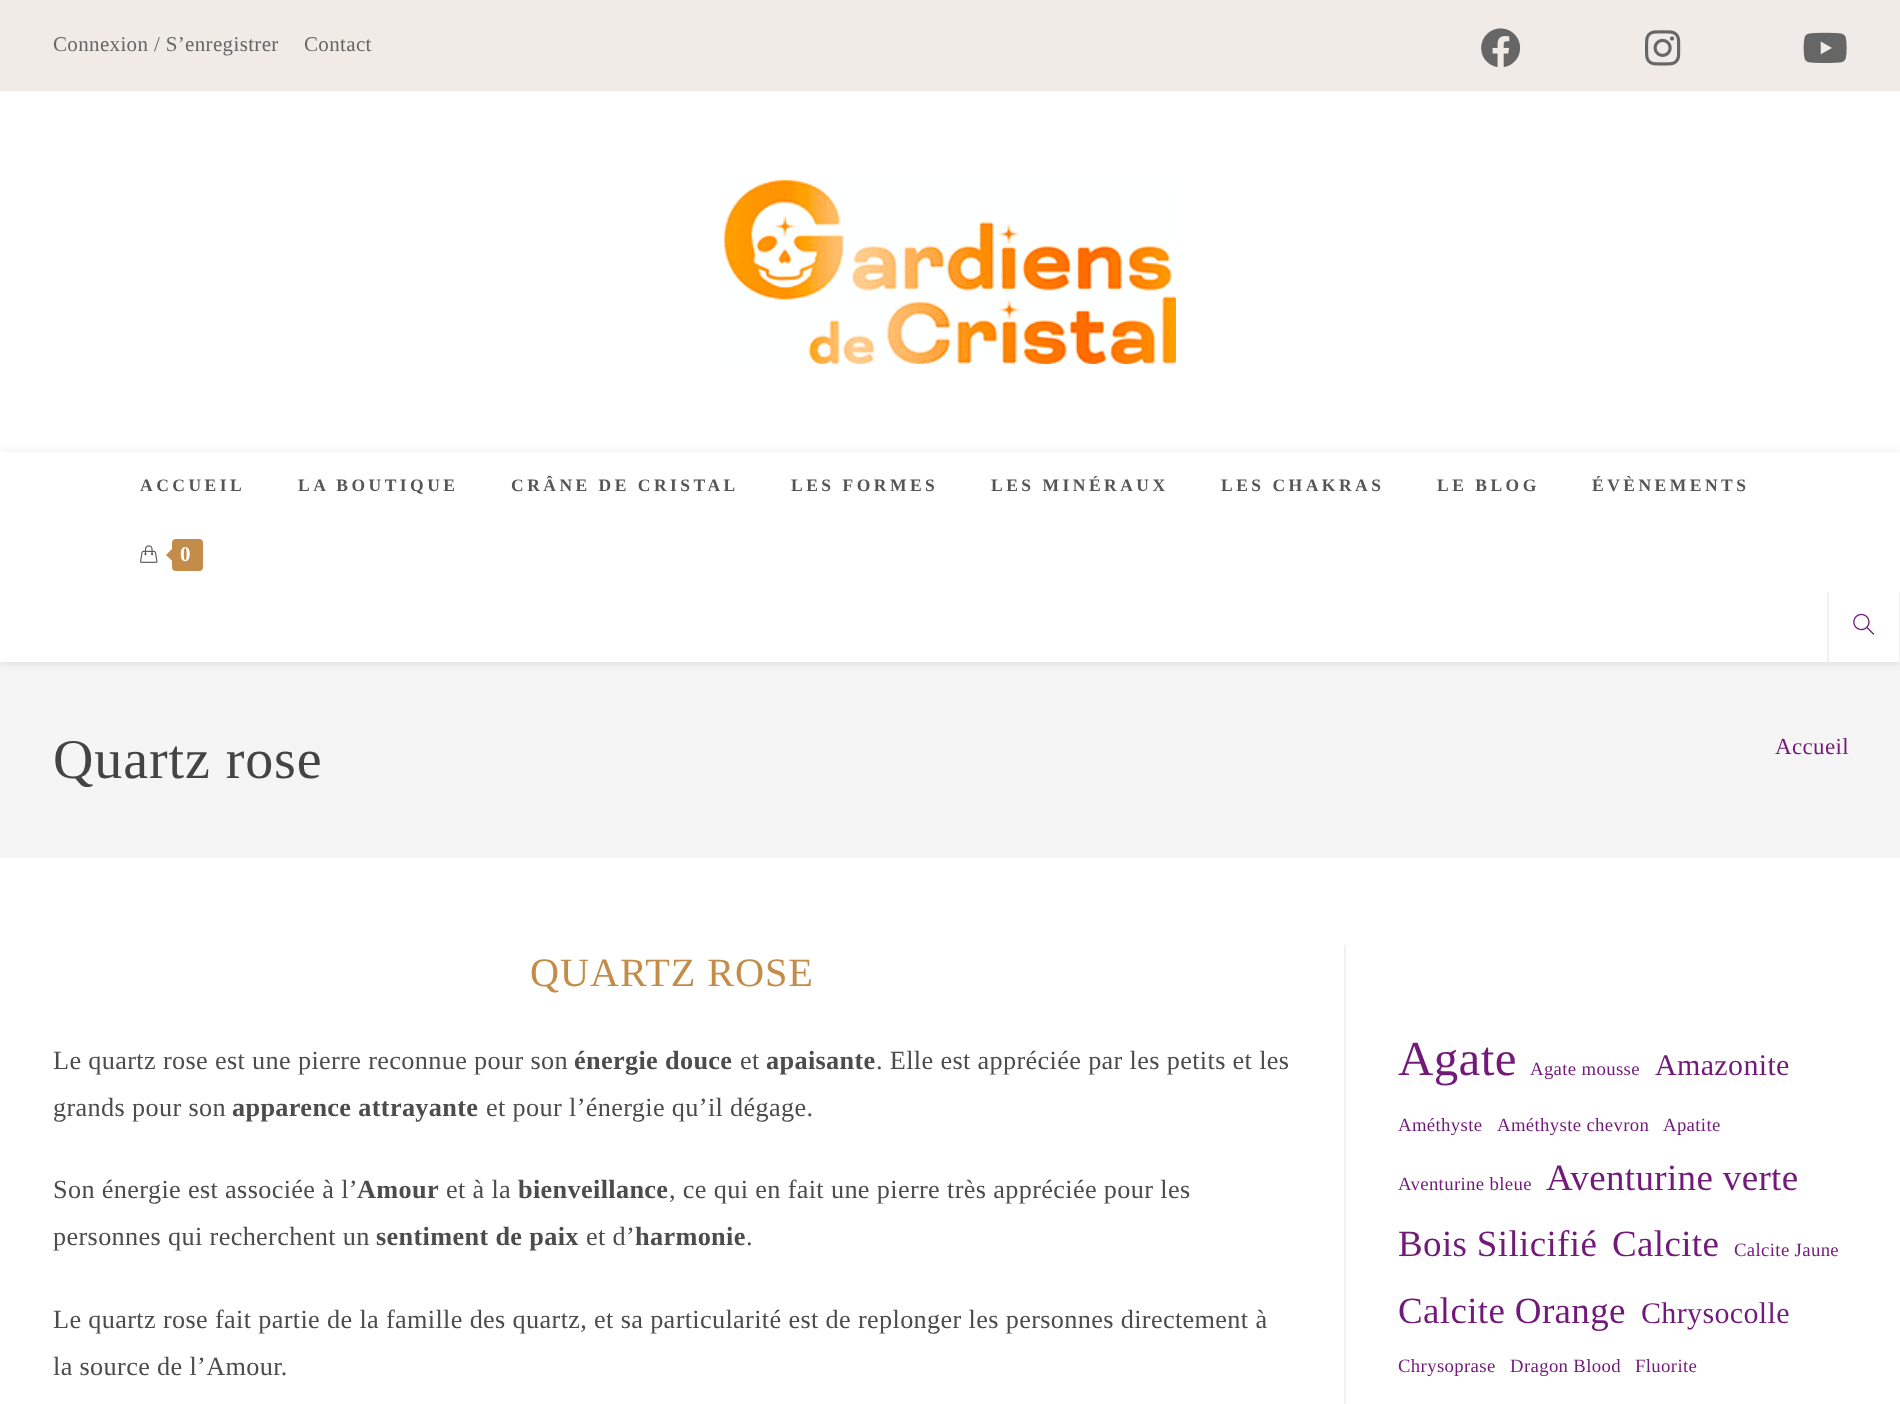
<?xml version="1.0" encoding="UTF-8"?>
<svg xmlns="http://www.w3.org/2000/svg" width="1900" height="1404">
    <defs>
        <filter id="blur1" x="-50%" y="-200%" width="200%" height="500%"><feGaussianBlur stdDeviation="4.5"/></filter>
    </defs>
    <rect width="100%" height="100%" fill="#FFFFFF"/>
    <rect x="0" y="0" width="1900" height="91" fill="#F0EBE6"/>
    <text x="53" y="51" font-family="Liberation Serif" font-size="21" letter-spacing="0.35" fill="#666666">Connexion / S’enregistrer</text>
    <text x="304" y="51" font-family="Liberation Serif" font-size="21" letter-spacing="0.35" fill="#666666">Contact</text>
    <image x="1481" y="28" width="40" height="40" href="img_01.png"/>
    <image x="1645" y="30" width="36" height="36" href="img_02.png"/>
    <image x="1803" y="32" width="44" height="31" href="img_03.png"/>
    <image x="724" y="180" width="452" height="184" href="img_04.png"/>
    <rect x="0" y="662" width="1900" height="196" fill="#F5F5F5"/>
    <rect x="0" y="453" width="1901" height="210" fill="#000000" fill-opacity="0.1" filter="url(#blur1)"/>
    <rect x="0" y="452" width="1900" height="210" fill="#FFFFFF"/>
    <text x="140" y="491" font-family="Liberation Serif" font-size="17.5" font-weight="700" letter-spacing="3.5" fill="#555555">ACCUEIL</text>
    <text x="298" y="491" font-family="Liberation Serif" font-size="17.5" font-weight="700" letter-spacing="3.5" fill="#555555">LA BOUTIQUE</text>
    <text x="511" y="491" font-family="Liberation Serif" font-size="17.5" font-weight="700" letter-spacing="3.5" fill="#555555">CRÂNE DE CRISTAL</text>
    <text x="791" y="491" font-family="Liberation Serif" font-size="17.5" font-weight="700" letter-spacing="3.5" fill="#555555">LES FORMES</text>
    <text x="991" y="491" font-family="Liberation Serif" font-size="17.5" font-weight="700" letter-spacing="3.5" fill="#555555">LES MINÉRAUX</text>
    <text x="1221" y="491" font-family="Liberation Serif" font-size="17.5" font-weight="700" letter-spacing="3.5" fill="#555555">LES CHAKRAS</text>
    <text x="1437" y="491" font-family="Liberation Serif" font-size="17.5" font-weight="700" letter-spacing="3.5" fill="#555555">LE BLOG</text>
    <text x="1592" y="491" font-family="Liberation Serif" font-size="17.5" font-weight="700" letter-spacing="3.5" fill="#555555">ÉVÈNEMENTS</text>
    <image x="140" y="545" width="18" height="18" href="img_05.png"/>
    <rect x="172" y="539" width="31" height="32" rx="4" fill="#C48C49"/>
    <path d="M 175 546 V 563.5 L 166 555 Z" fill="#C48C49"/>
    <text x="180" y="561" font-family="Liberation Serif" font-size="21" font-weight="700" letter-spacing="3.5" fill="#FFFFFF">0</text>
    <rect x="1899" y="592" width="1" height="70" fill="#F1F1F1"/>
    <rect x="1827" y="592" width="2" height="70" fill="#F1F1F1"/>
    <image x="1853" y="613" width="22" height="22" href="img_06.png"/>
    <text x="53" y="778" font-family="Liberation Serif" font-size="56" letter-spacing="0.9" fill="#444444">Quartz rose</text>
    <text x="1775" y="754" font-family="Liberation Serif" font-size="23" letter-spacing="0.35" fill="#721A7A">Accueil</text>
    <rect x="1344" y="945" width="2" height="459" fill="#F1F1F1"/>
    <text x="530" y="986" font-family="Liberation Serif" font-size="40.25" letter-spacing="0.9" fill="#C48C49">QUARTZ ROSE</text>
    <text x="53" y="1069" font-family="Liberation Serif" font-size="26.25" letter-spacing="0.35" fill="#4C4C4C">Le quartz rose est une pierre reconnue pour son</text>
    <text x="574" y="1069" font-family="Liberation Serif" font-size="26.25" font-weight="700" letter-spacing="0.35" fill="#4C4C4C">énergie douce</text>
    <text x="740" y="1069" font-family="Liberation Serif" font-size="26.25" letter-spacing="0.35" fill="#4C4C4C">et</text>
    <text x="766" y="1069" font-family="Liberation Serif" font-size="26.25" font-weight="700" letter-spacing="0.35" fill="#4C4C4C">apaisante</text>
    <text x="876" y="1069" font-family="Liberation Serif" font-size="26.25" letter-spacing="0.35" fill="#4C4C4C">. Elle est appréciée par les petits et les</text>
    <text x="53" y="1116" font-family="Liberation Serif" font-size="26.25" letter-spacing="0.35" fill="#4C4C4C">grands pour son</text>
    <text x="232" y="1116" font-family="Liberation Serif" font-size="26.25" font-weight="700" letter-spacing="0.35" fill="#4C4C4C">apparence attrayante</text>
    <text x="486" y="1116" font-family="Liberation Serif" font-size="26.25" letter-spacing="0.35" fill="#4C4C4C">et pour l’énergie qu’il dégage.</text>
    <text x="53" y="1198" font-family="Liberation Serif" font-size="26.25" letter-spacing="0.35" fill="#4C4C4C">Son énergie est associée à l’</text>
    <text x="357" y="1198" font-family="Liberation Serif" font-size="26.25" font-weight="700" letter-spacing="0.35" fill="#4C4C4C">Amour</text>
    <text x="446" y="1198" font-family="Liberation Serif" font-size="26.25" letter-spacing="0.35" fill="#4C4C4C">et à la</text>
    <text x="518" y="1198" font-family="Liberation Serif" font-size="26.25" font-weight="700" letter-spacing="0.35" fill="#4C4C4C">bienveillance</text>
    <text x="669" y="1198" font-family="Liberation Serif" font-size="26.25" letter-spacing="0.35" fill="#4C4C4C">, ce qui en fait une pierre très appréciée pour les</text>
    <text x="53" y="1245" font-family="Liberation Serif" font-size="26.25" letter-spacing="0.35" fill="#4C4C4C">personnes qui recherchent un</text>
    <text x="376" y="1245" font-family="Liberation Serif" font-size="26.25" font-weight="700" letter-spacing="0.35" fill="#4C4C4C">sentiment de paix</text>
    <text x="586" y="1245" font-family="Liberation Serif" font-size="26.25" letter-spacing="0.35" fill="#4C4C4C">et d’</text>
    <text x="635" y="1245" font-family="Liberation Serif" font-size="26.25" font-weight="700" letter-spacing="0.35" fill="#4C4C4C">harmonie</text>
    <text x="746" y="1245" font-family="Liberation Serif" font-size="26.25" letter-spacing="0.35" fill="#4C4C4C">.</text>
    <text font-family="Liberation Serif" font-size="26.25" letter-spacing="0.35" fill="#4C4C4C">
        <tspan x="53" y="1328">Le quartz rose fait partie de la famille des quartz, et sa particularité est de replonger les personnes directement à</tspan>
        <tspan x="53" y="1375">la source de l’Amour.</tspan>
    </text>
    <text x="1398" y="1075" font-family="Liberation Serif" font-size="49" letter-spacing="0.35" fill="#721A7A">Agate</text>
    <text x="1530" y="1075" font-family="Liberation Serif" font-size="18.75" letter-spacing="0.35" fill="#721A7A">Agate mousse</text>
    <text x="1655" y="1075" font-family="Liberation Serif" font-size="30" letter-spacing="0.35" fill="#721A7A">Amazonite</text>
    <text x="1398" y="1131" font-family="Liberation Serif" font-size="18.75" letter-spacing="0.35" fill="#721A7A">Améthyste</text>
    <text x="1497" y="1131" font-family="Liberation Serif" font-size="18.75" letter-spacing="0.35" fill="#721A7A">Améthyste chevron</text>
    <text x="1663" y="1131" font-family="Liberation Serif" font-size="18.75" letter-spacing="0.35" fill="#721A7A">Apatite</text>
    <text x="1398" y="1190" font-family="Liberation Serif" font-size="18.75" letter-spacing="0.35" fill="#721A7A">Aventurine bleue</text>
    <text x="1546" y="1190" font-family="Liberation Serif" font-size="37" letter-spacing="0.35" fill="#721A7A">Aventurine verte</text>
    <text x="1398" y="1256" font-family="Liberation Serif" font-size="37" letter-spacing="0.35" fill="#721A7A">Bois Silicifié</text>
    <text x="1612" y="1256" font-family="Liberation Serif" font-size="37" letter-spacing="0.35" fill="#721A7A">Calcite</text>
    <text x="1734" y="1256" font-family="Liberation Serif" font-size="18.75" letter-spacing="0.35" fill="#721A7A">Calcite Jaune</text>
    <text x="1398" y="1323" font-family="Liberation Serif" font-size="37" letter-spacing="0.35" fill="#721A7A">Calcite Orange</text>
    <text x="1641" y="1323" font-family="Liberation Serif" font-size="30" letter-spacing="0.35" fill="#721A7A">Chrysocolle</text>
    <text x="1398" y="1372" font-family="Liberation Serif" font-size="18.75" letter-spacing="0.35" fill="#721A7A">Chrysoprase</text>
    <text x="1510" y="1372" font-family="Liberation Serif" font-size="18.75" letter-spacing="0.35" fill="#721A7A">Dragon Blood</text>
    <text x="1635" y="1372" font-family="Liberation Serif" font-size="18.75" letter-spacing="0.35" fill="#721A7A">Fluorite</text>
</svg>
